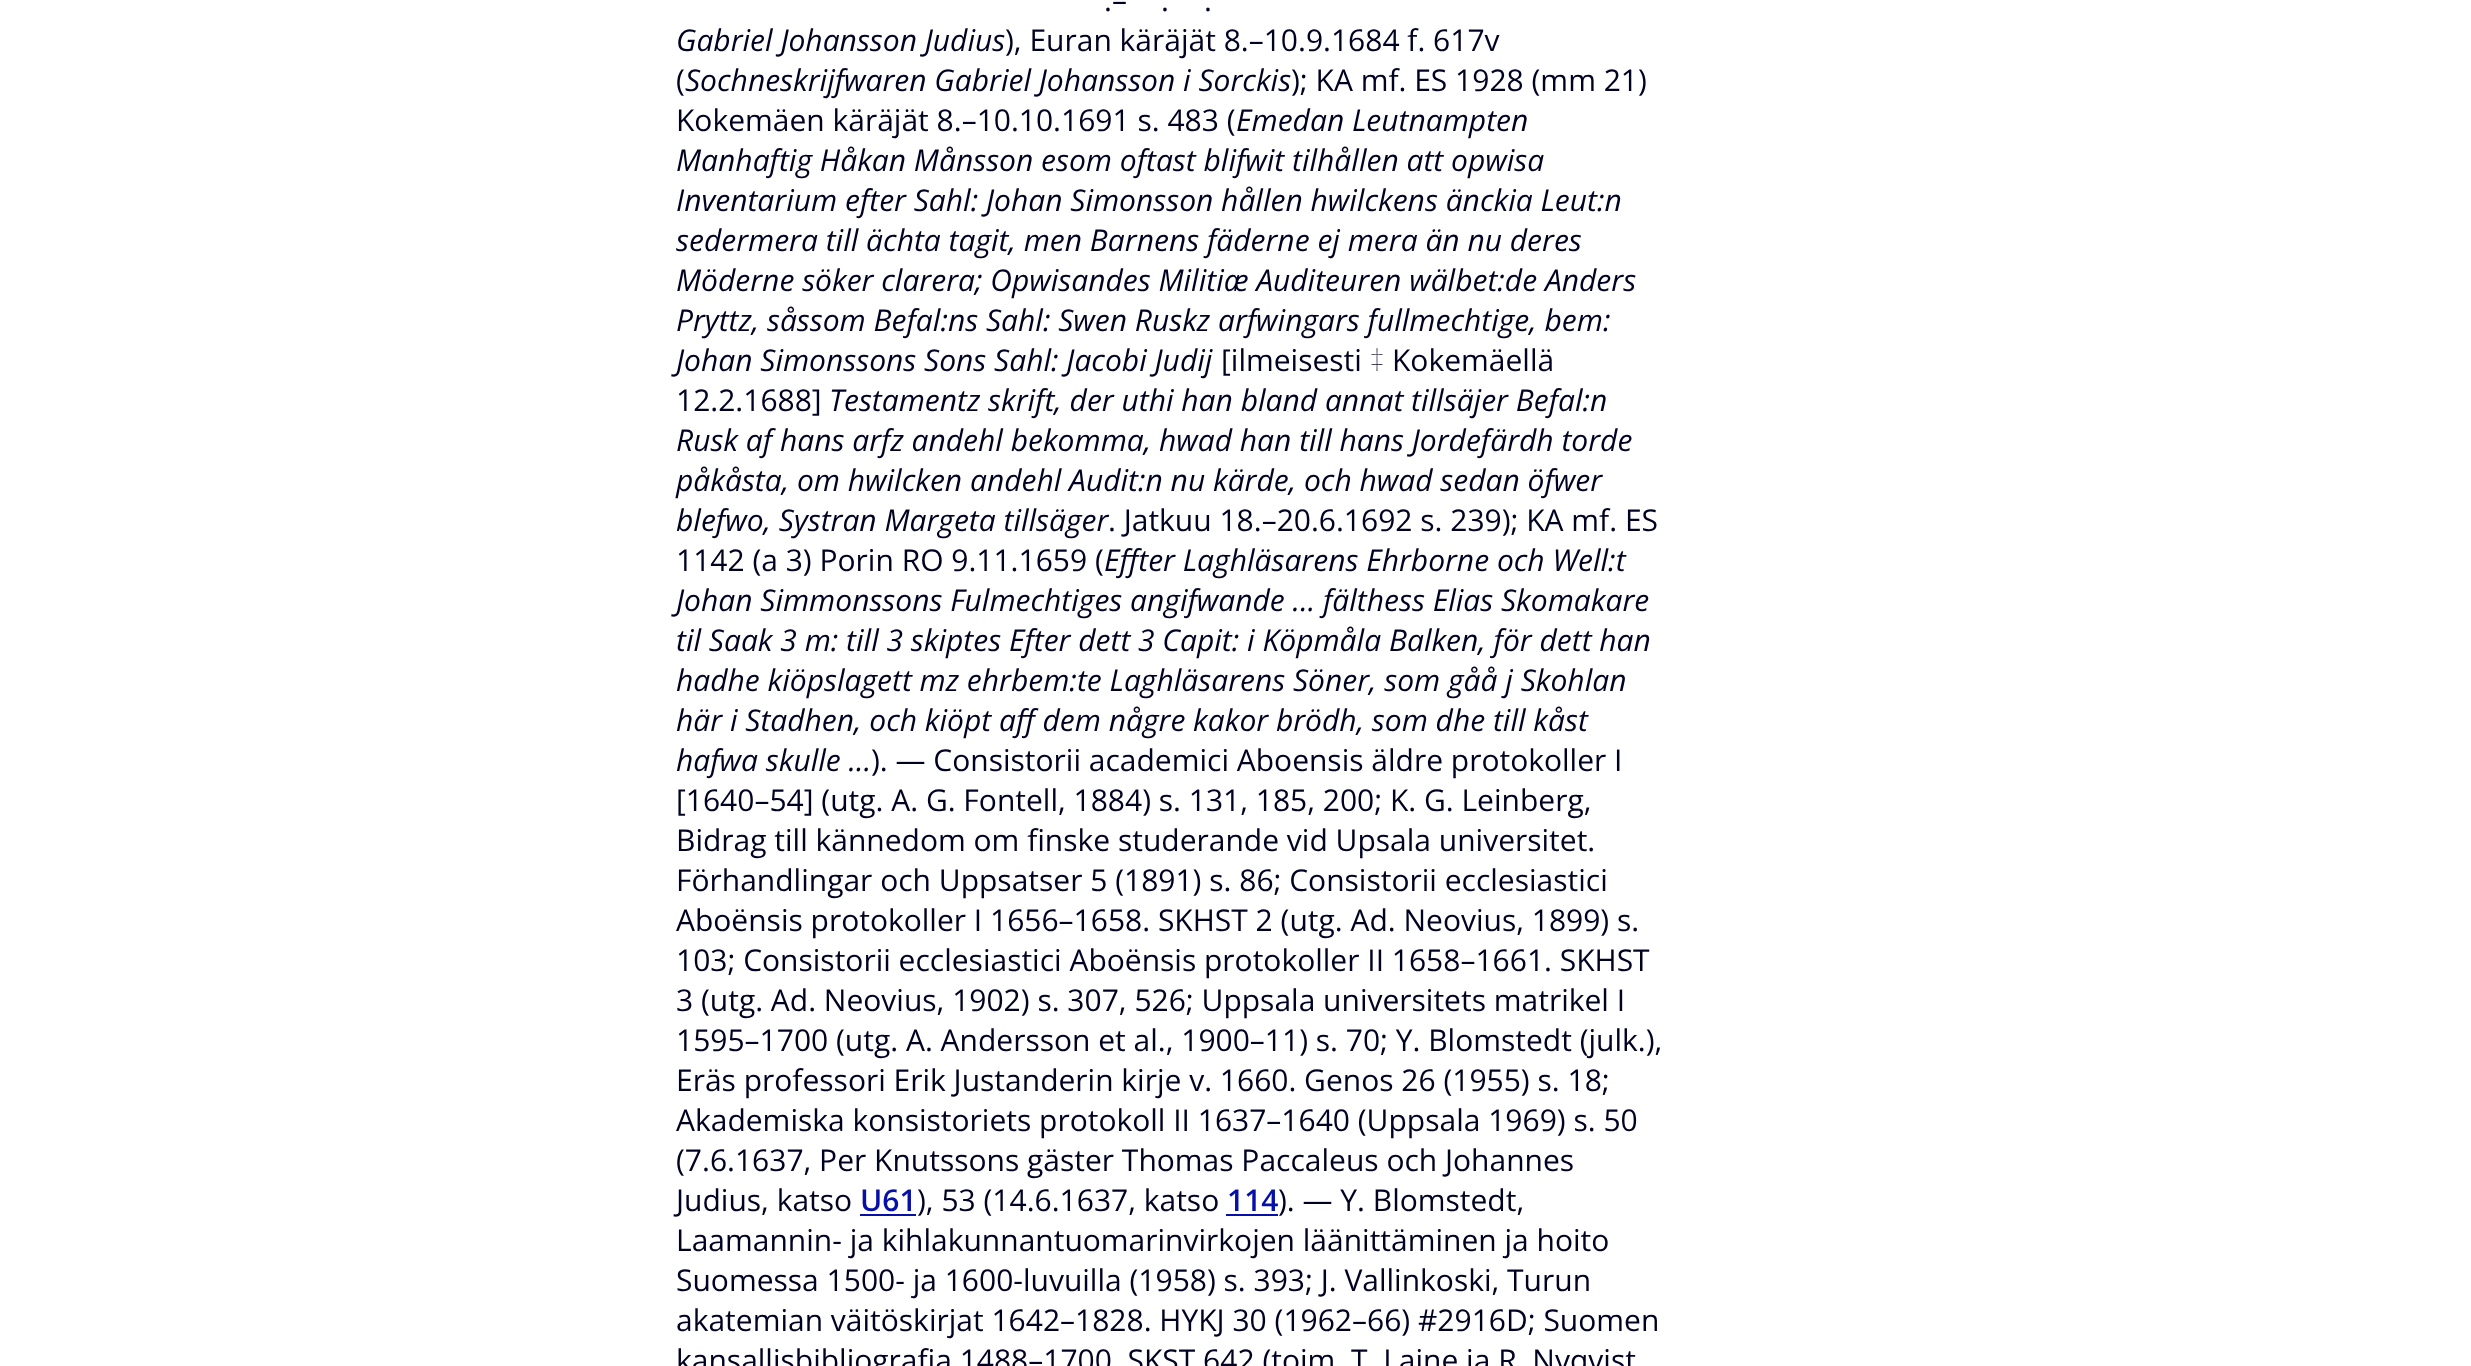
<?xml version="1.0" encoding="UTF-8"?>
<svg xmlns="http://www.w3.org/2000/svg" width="2471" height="1366">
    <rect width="100%" height="100%" fill="#FFFFFF"/>
    <text x="1104" y="11" font-family="Open Sans" font-size="30" fill="#000222">.–</text>
    <text x="1161" y="11" font-family="Open Sans" font-size="30" fill="#000222">.</text>
    <text x="1204" y="11" font-family="Open Sans" font-size="30" fill="#000222">.</text>
    <text x="676" y="51" font-family="Open Sans" font-size="30" font-style="italic" fill="#000222">Gabriel Johansson Judius</text>
    <text x="1005" y="51" font-family="Open Sans" font-size="30" fill="#000222">), Euran käräjät 8.–10.9.1684 f. 617v</text>
    <text x="676" y="91" font-family="Open Sans" font-size="30" fill="#000222">(</text>
    <text x="685" y="91" font-family="Open Sans" font-size="30" font-style="italic" fill="#000222">Sochneskrijfwaren Gabriel Johansson i Sorckis</text>
    <text x="1291" y="91" font-family="Open Sans" font-size="30" fill="#000222">); KA mf. ES 1928 (mm 21)</text>
    <text x="676" y="131" font-family="Open Sans" font-size="30" fill="#000222">Kokemäen käräjät 8.–10.10.1691 s. 483 (</text>
    <text x="1236" y="131" font-family="Open Sans" font-size="30" font-style="italic" fill="#000222">Emedan Leutnampten</text>
    <text font-family="Open Sans" font-size="30" font-style="italic" fill="#000222">
        <tspan x="676" y="171">Manhaftig Håkan Månsson esom oftast blifwit tilhållen att opwisa</tspan>
        <tspan x="676" y="211">Inventarium efter Sahl: Johan Simonsson hållen hwilckens änckia Leut:n</tspan>
        <tspan x="676" y="251">sedermera till ächta tagit, men Barnens fäderne ej mera än nu deres</tspan>
        <tspan x="676" y="291">Möderne söker clarera; Opwisandes Militiæ Auditeuren wälbet:de Anders</tspan>
        <tspan x="676" y="331">Pryttz, såssom Befal:ns Sahl: Swen Ruskz arfwingars fullmechtige, bem:</tspan>
        <tspan x="676" y="371">Johan Simonssons Sons Sahl: Jacobi Judij</tspan>
    </text>
    <text x="1221" y="371" font-family="Open Sans" font-size="30" fill="#000222">[ilmeisesti</text>
    <text x="1370" y="371" font-family="Noto Sans" font-size="30" font-weight="100" fill="#000222">‡</text>
    <text x="1392" y="371" font-family="Open Sans" font-size="30" fill="#000222">Kokemäellä</text>
    <text x="676" y="411" font-family="Open Sans" font-size="30" fill="#000222">12.2.1688]</text>
    <text x="829" y="411" font-family="Open Sans" font-size="30" font-style="italic" fill="#000222">Testamentz skrift, der uthi han bland annat tillsäjer Befal:n</text>
    <text font-family="Open Sans" font-size="30" font-style="italic" fill="#000222">
        <tspan x="676" y="451">Rusk af hans arfz andehl bekomma, hwad han till hans Jordefärdh torde</tspan>
        <tspan x="676" y="491">påkåsta, om hwilcken andehl Audit:n nu kärde, och hwad sedan öfwer</tspan>
        <tspan x="676" y="531">blefwo, Systran Margeta tillsäger</tspan>
    </text>
    <text x="1108" y="531" font-family="Open Sans" font-size="30" fill="#000222">. Jatkuu 18.–20.6.1692 s. 239); KA mf. ES</text>
    <text x="676" y="571" font-family="Open Sans" font-size="30" fill="#000222">1142 (a 3) Porin RO 9.11.1659 (</text>
    <text x="1104" y="571" font-family="Open Sans" font-size="30" font-style="italic" fill="#000222">Effter Laghläsarens Ehrborne och Well:t</text>
    <text font-family="Open Sans" font-size="30" font-style="italic" fill="#000222">
        <tspan x="676" y="611">Johan Simmonssons Fulmechtiges angifwande ... fälthess Elias Skomakare</tspan>
        <tspan x="676" y="651">til Saak 3 m: till 3 skiptes Efter dett 3 Capit: i Köpmåla Balken, för dett han</tspan>
        <tspan x="676" y="691">hadhe kiöpslagett mz ehrbem:te Laghläsarens Söner, som gåå j Skohlan</tspan>
        <tspan x="676" y="731">här i Stadhen, och kiöpt aff dem någre kakor brödh, som dhe till kåst</tspan>
        <tspan x="676" y="771">hafwa skulle ...</tspan>
    </text>
    <text x="871" y="771" font-family="Open Sans" font-size="30" fill="#000222">). — Consistorii academici Aboensis äldre protokoller I</text>
    <text font-family="Open Sans" font-size="30" fill="#000222">
        <tspan x="676" y="811">[1640–54] (utg. A. G. Fontell, 1884) s. 131, 185, 200; K. G. Leinberg,</tspan>
        <tspan x="676" y="851">Bidrag till kännedom om finske studerande vid Upsala universitet.</tspan>
        <tspan x="676" y="891">Förhandlingar och Uppsatser 5 (1891) s. 86; Consistorii ecclesiastici</tspan>
        <tspan x="676" y="931">Aboënsis protokoller I 1656–1658. SKHST 2 (utg. Ad. Neovius, 1899) s.</tspan>
        <tspan x="676" y="971">103; Consistorii ecclesiastici Aboënsis protokoller II 1658–1661. SKHST</tspan>
        <tspan x="676" y="1011">3 (utg. Ad. Neovius, 1902) s. 307, 526; Uppsala universitets matrikel I</tspan>
        <tspan x="676" y="1051">1595–1700 (utg. A. Andersson et al., 1900–11) s. 70; Y. Blomstedt (julk.),</tspan>
        <tspan x="676" y="1091">Eräs professori Erik Justanderin kirje v. 1660. Genos 26 (1955) s. 18;</tspan>
        <tspan x="676" y="1131">Akademiska konsistoriets protokoll II 1637–1640 (Uppsala 1969) s. 50</tspan>
        <tspan x="676" y="1171">(7.6.1637, Per Knutssons gäster Thomas Paccaleus och Johannes</tspan>
        <tspan x="676" y="1211">Judius, katso</tspan>
    </text>
    <text x="860" y="1211" font-family="Open Sans" font-size="30" font-weight="600" fill="#0610A8">U61</text>
    <rect x="860" y="1214" width="56" height="2" fill="#0610A8"/>
    <text x="917" y="1211" font-family="Open Sans" font-size="30" fill="#000222">), 53 (14.6.1637, katso</text>
    <text x="1227" y="1211" font-family="Open Sans" font-size="30" font-weight="600" fill="#0610A8">114</text>
    <rect x="1226" y="1214" width="52" height="2" fill="#0610A8"/>
    <text x="1278" y="1211" font-family="Open Sans" font-size="30" fill="#000222">). — Y. Blomstedt,</text>
    <text font-family="Open Sans" font-size="30" fill="#000222">
        <tspan x="676" y="1251">Laamannin- ja kihlakunnantuomarinvirkojen läänittäminen ja hoito</tspan>
        <tspan x="676" y="1291">Suomessa 1500- ja 1600-luvuilla (1958) s. 393; J. Vallinkoski, Turun</tspan>
        <tspan x="676" y="1331">akatemian väitöskirjat 1642–1828. HYKJ 30 (1962–66) #2916D; Suomen</tspan>
        <tspan x="676" y="1371">kansallisbibliografia 1488–1700. SKST 642 (toim. T. Laine ja R. Nyqvist</tspan>
    </text>
</svg>
